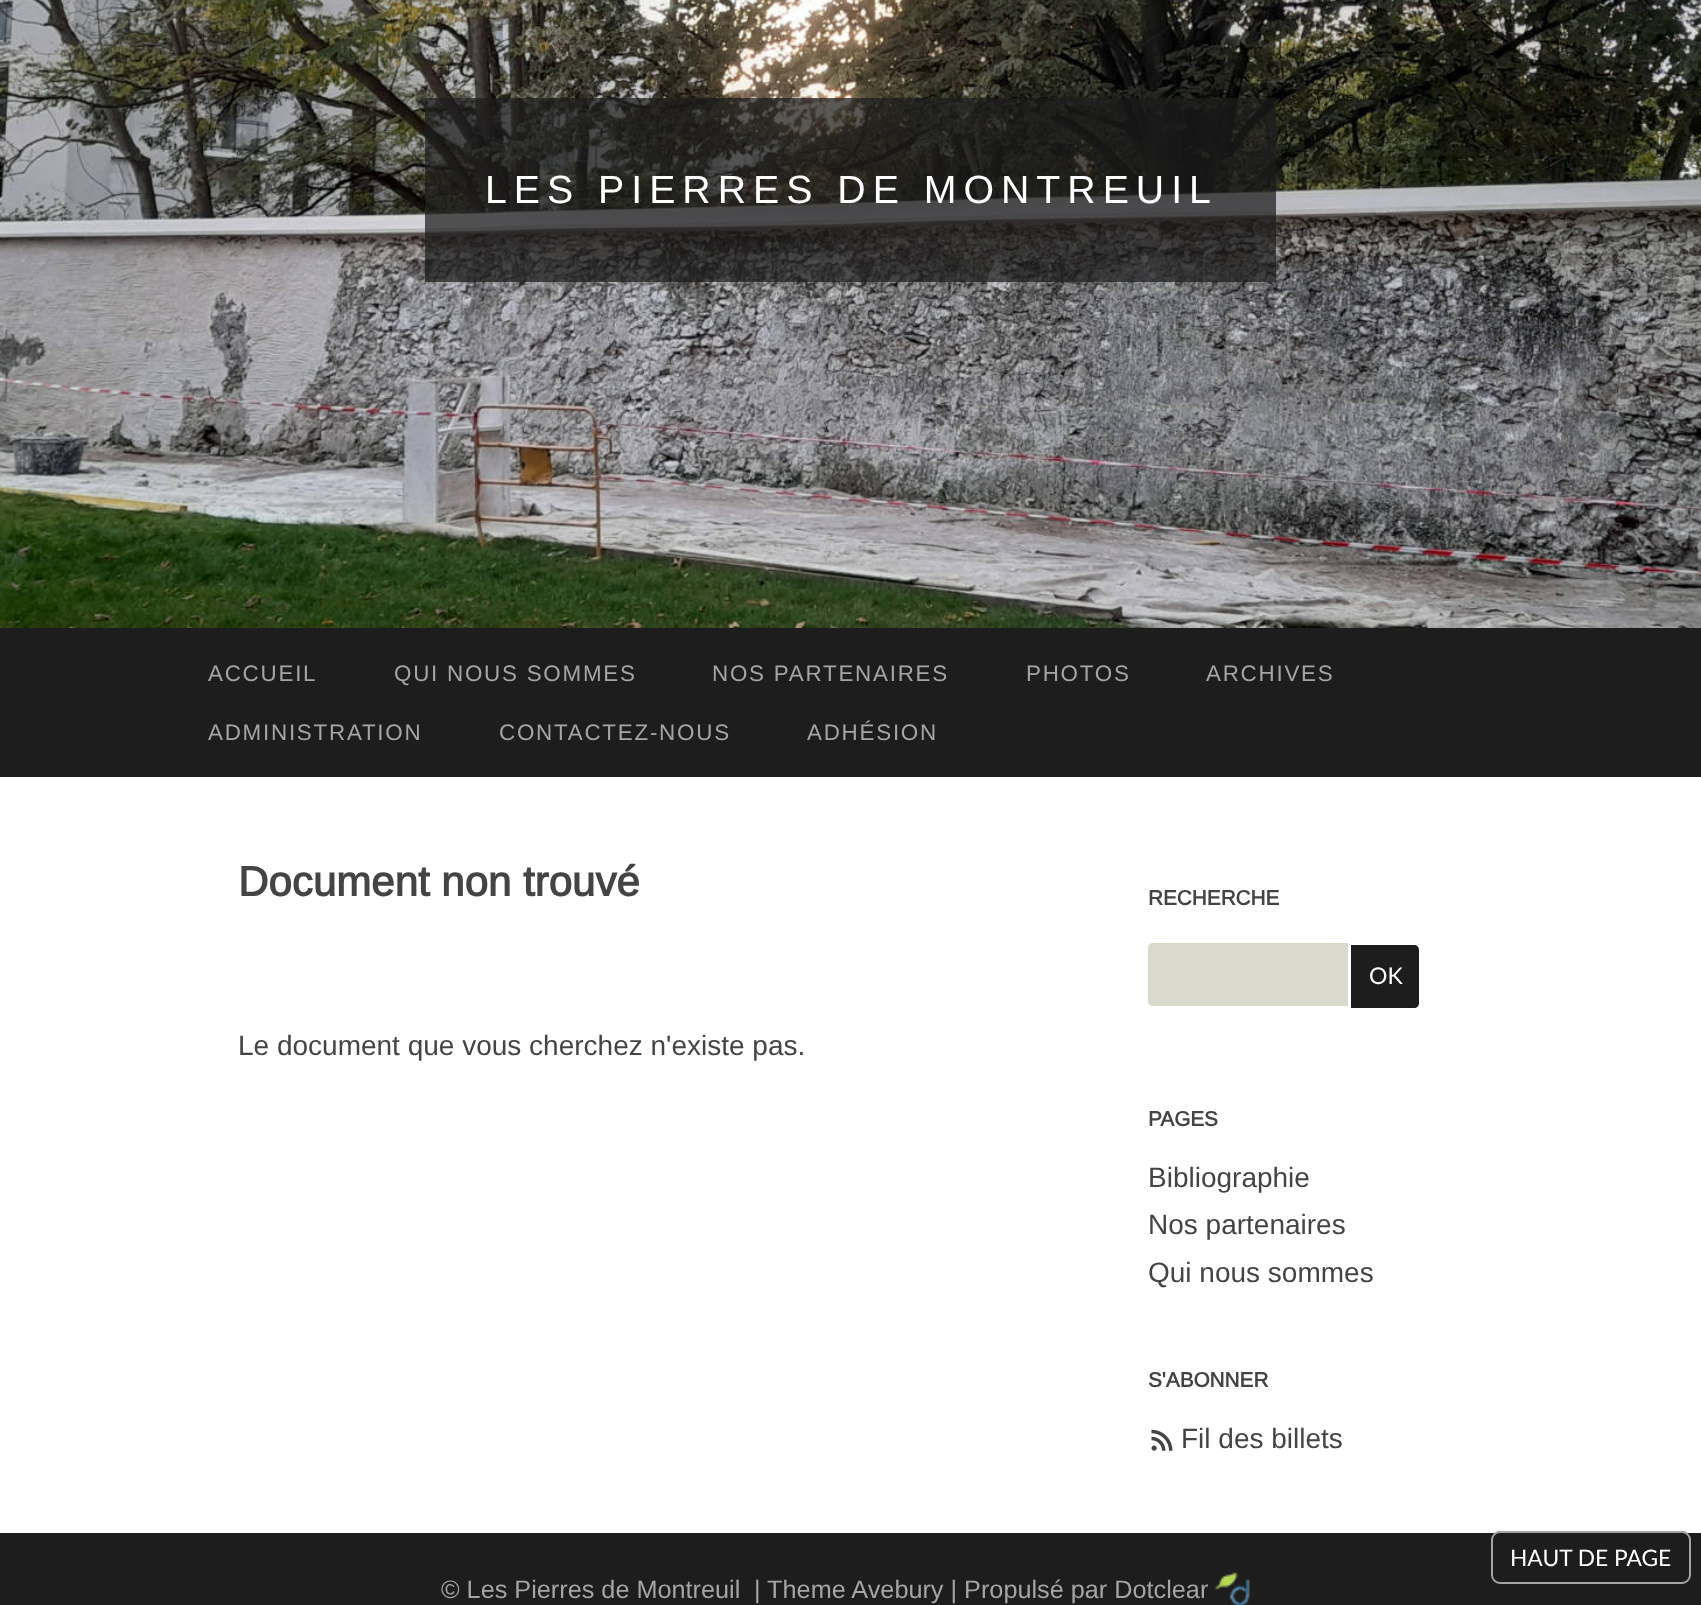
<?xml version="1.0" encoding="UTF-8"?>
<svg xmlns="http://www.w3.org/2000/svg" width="1701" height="1605">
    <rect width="100%" height="100%" fill="#FFFFFF"/>
    <image x="0" y="0" width="1701" height="628" href="img_01.png"/>
    <rect x="425" y="98" width="851" height="184" fill="#1D1D1D" fill-opacity="0.72"/>
    <text x="485" y="203" font-family="Arimo" font-size="39.25" letter-spacing="7" fill="#FFFFFF">LES PIERRES DE MONTREUIL</text>
    <rect x="0" y="628" width="1701" height="149" fill="#1D1D1D"/>
    <text x="208" y="681" font-family="Arimo" font-size="22.4" letter-spacing="1.75" fill="#A5A5A5">ACCUEIL</text>
    <text x="394" y="681" font-family="Arimo" font-size="22.4" letter-spacing="1.75" fill="#A5A5A5">QUI NOUS SOMMES</text>
    <text x="712" y="681" font-family="Arimo" font-size="22.4" letter-spacing="1.75" fill="#A5A5A5">NOS PARTENAIRES</text>
    <text x="1026" y="681" font-family="Arimo" font-size="22.4" letter-spacing="1.75" fill="#A5A5A5">PHOTOS</text>
    <text x="1206" y="681" font-family="Arimo" font-size="22.4" letter-spacing="1.75" fill="#A5A5A5">ARCHIVES</text>
    <text x="208" y="740" font-family="Arimo" font-size="22.4" letter-spacing="1.75" fill="#A5A5A5">ADMINISTRATION</text>
    <text x="499" y="740" font-family="Arimo" font-size="22.4" letter-spacing="1.75" fill="#A5A5A5">CONTACTEZ-NOUS</text>
    <text x="807" y="740" font-family="Arimo" font-size="22.4" letter-spacing="1.75" fill="#A5A5A5">ADHÉSION</text>
    <text x="238" y="896" font-family="Arimo" font-size="42" font-weight="700" fill="#444444">Document non trouvé</text>
    <text x="238" y="1055" font-family="Arimo" font-size="28" fill="#444444">Le document que vous cherchez n'existe pas.</text>
    <text x="1148" y="905" font-family="Arimo" font-size="20.75" font-weight="700" fill="#444444">RECHERCHE</text>
    <path d="M 1153 943 H 1348 V 1006 H 1153 C 1150 1006 1148 1004 1148 1001 V 948 C 1148 945 1150 943 1153 943 Z" fill="#D9DACB"/>
    <path d="M 1351 945 H 1414 C 1417 945 1419 947 1419 950 V 1003 C 1419 1006 1417 1008 1414 1008 H 1351 Z" fill="#1D1D1D"/>
    <text x="1369" y="984" font-family="Lato" font-size="23" fill="#FFFFFF">OK</text>
    <text x="1148" y="1126" font-family="Arimo" font-size="20.75" font-weight="700" fill="#444444">PAGES</text>
    <text font-family="Arimo" font-size="28" fill="#444444">
        <tspan x="1148" y="1187">Bibliographie</tspan>
        <tspan x="1148" y="1234">Nos partenaires</tspan>
        <tspan x="1148" y="1282">Qui nous sommes</tspan>
    </text>
    <text x="1148" y="1387" font-family="Arimo" font-size="20.75" font-weight="700" fill="#444444">S'ABONNER</text>
    <image x="1151" y="1429" width="22" height="22" href="img_02.png"/>
    <text x="1181" y="1448" font-family="Arimo" font-size="28" fill="#444444">Fil des billets</text>
    <rect x="0" y="1533" width="1701" height="72" fill="#1D1D1D"/>
    <rect x="1491" y="1531" width="200" height="53" rx="9" fill="#1D1D1D"/>
    <rect x="1492" y="1532" width="198" height="51" rx="8" fill="none" stroke="#FFFFFF" stroke-opacity="0.6" stroke-width="2"/>
    <text x="1510" y="1566" font-family="Lato" font-size="22.75" fill="#FFFFFF">HAUT DE PAGE</text>
    <text x="441" y="1598" font-family="Arimo" font-size="25.25" fill="#A5A5A5">© Les Pierres de Montreuil</text>
    <text x="754" y="1598" font-family="Arimo" font-size="25.25" fill="#A5A5A5">| Theme Avebury | Propulsé par Dotclear</text>
    <image x="1214" y="1571" width="36" height="34" href="img_03.png"/>
</svg>
